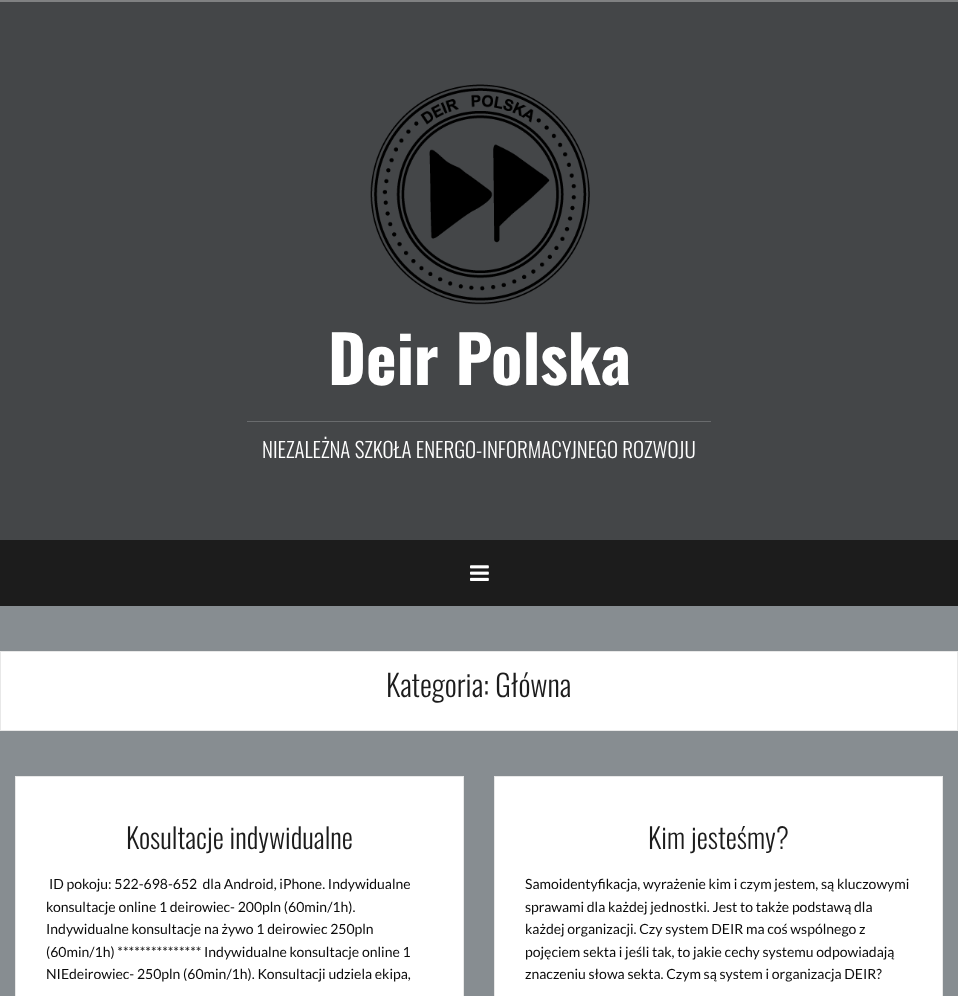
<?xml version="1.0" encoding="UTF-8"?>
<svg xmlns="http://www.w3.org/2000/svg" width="958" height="996">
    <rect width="100%" height="100%" fill="#878D91"/>
    <rect x="0" y="0" width="958" height="2" fill="#808182"/>
    <rect x="0" y="2" width="958" height="538" fill="#444648"/>
    <image x="370" y="84" width="220" height="221" href="img_01.png"/>
    <text x="328" y="385" font-family="Oswald" font-size="65" font-weight="700" fill="#FFFFFF">Deir Polska</text>
    <rect x="247" y="421" width="464" height="1" fill="#696B6D"/>
    <text x="262" y="458" font-family="Oswald" font-size="21" font-weight="300" fill="#FFFFFF">NIEZALEŻNA SZKOŁA ENERGO-INFORMACYJNEGO ROZWOJU</text>
    <rect x="0" y="540" width="958" height="66" fill="#1C1C1C"/>
    <image x="470" y="565" width="19" height="16" href="img_02.png"/>
    <rect x="0.5" y="651.5" width="957" height="79" fill="#FFFFFF" stroke="#E8E8E8"/>
    <text x="386" y="697" font-family="Oswald" font-size="30" font-weight="300" fill="#1C1C1C">Kategoria: Główna</text>
    <rect x="15.5" y="776.5" width="448" height="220" fill="#FFFFFF" stroke="#E8E8E8"/>
    <text x="126" y="849" font-family="Oswald" font-size="28" font-weight="300" fill="#1C1C1C">Kosultacje indywidualne</text>
    <text x="49" y="889" font-family="Lato" font-size="14" fill="#0A0A0A" xml:space="preserve">ID pokoju: 522-698-652  dla Android, iPhone. Indywidualne</text>
    <text font-family="Lato" font-size="14" fill="#0A0A0A">
        <tspan x="46" y="912">konsultacje online 1 deirowiec- 200pln (60min/1h).</tspan>
        <tspan x="46" y="934">Indywidualne konsultacje na żywo 1 deirowiec 250pln</tspan>
        <tspan x="46" y="957">(60min/1h) *************** Indywidualne konsultacje online 1</tspan>
        <tspan x="46" y="979">NIEdeirowiec- 250pln (60min/1h). Konsultacji udziela ekipa,</tspan>
    </text>
    <rect x="494.5" y="776.5" width="448" height="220" fill="#FFFFFF" stroke="#E8E8E8"/>
    <text x="648" y="849" font-family="Oswald" font-size="28" font-weight="300" fill="#1C1C1C">Kim jesteśmy?</text>
    <text font-family="Lato" font-size="14" fill="#0A0A0A">
        <tspan x="525" y="889">Samoidentyfikacja, wyrażenie kim i czym jestem, są kluczowymi</tspan>
        <tspan x="525" y="912">sprawami dla każdej jednostki. Jest to także podstawą dla</tspan>
        <tspan x="525" y="934">każdej organizacji. Czy system DEIR ma coś wspólnego z</tspan>
        <tspan x="525" y="957">pojęciem sekta i jeśli tak, to jakie cechy systemu odpowiadają</tspan>
        <tspan x="525" y="979">znaczeniu słowa sekta. Czym są system i organizacja DEIR?</tspan>
    </text>
</svg>
